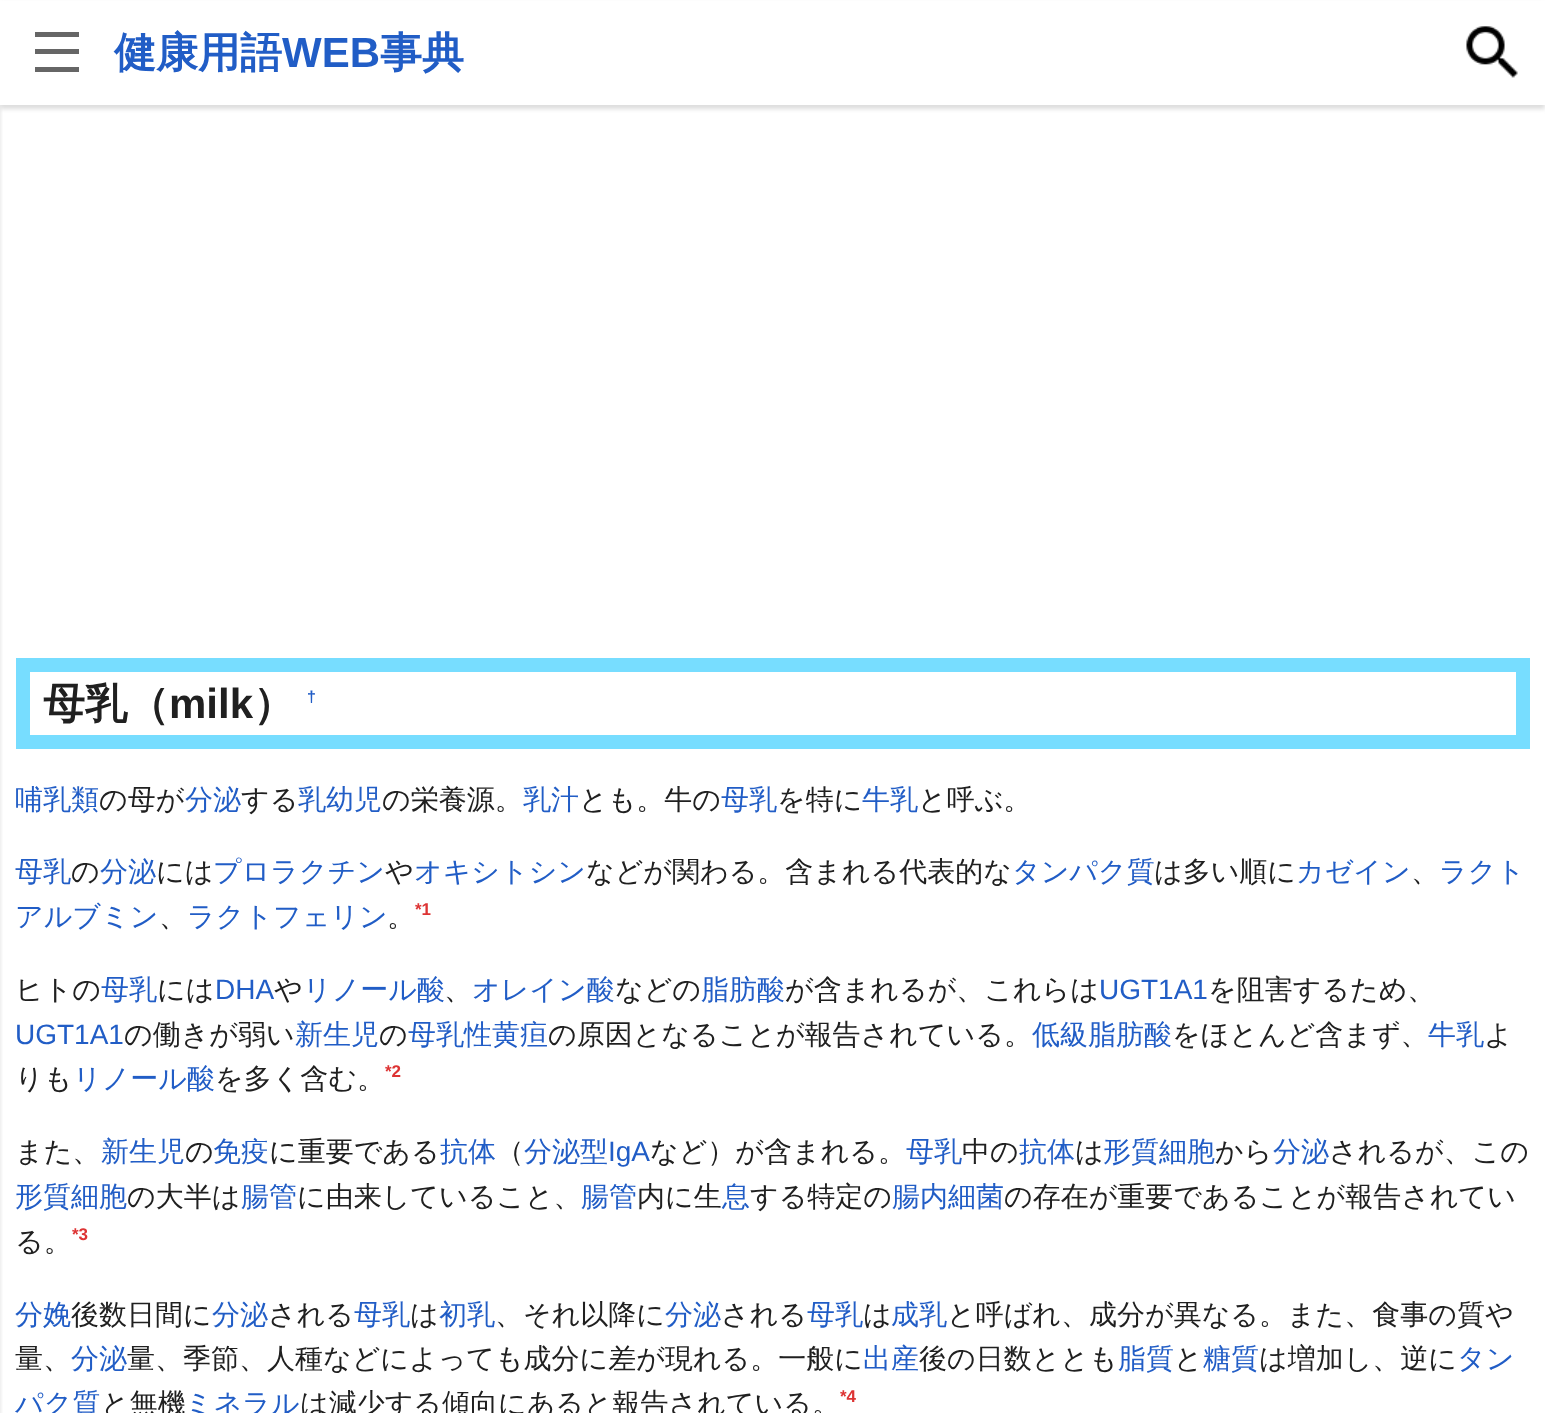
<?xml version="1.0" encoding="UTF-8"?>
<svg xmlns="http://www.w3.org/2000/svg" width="1545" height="1413">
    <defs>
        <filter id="blur1" x="-50%" y="-200%" width="200%" height="500%"><feGaussianBlur stdDeviation="2"/></filter>
    </defs>
    <rect width="100%" height="100%" fill="#FFFFFF"/>
    <rect x="-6" y="4" width="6" height="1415" fill="#DDDDDD" filter="url(#blur1)"/>
    <rect x="0" y="4" width="1545" height="105" fill="#DDDDDD" filter="url(#blur1)"/>
    <rect x="0" y="1" width="1545" height="104" fill="#FFFFFF"/>
    <rect x="35" y="49" width="44" height="5" fill="#666666"/>
    <rect x="35" y="32" width="44" height="5" fill="#666666"/>
    <rect x="35" y="67" width="44" height="5" fill="#666666"/>
    <text x="114" y="67" font-family="WenQuanYi Zen Hei" font-size="42" font-weight="700" fill="#215DC6">健康用語</text>
    <text x="282" y="67" font-family="Liberation Sans" font-size="42" font-weight="700" fill="#215DC6">WEB</text>
    <text x="380" y="67" font-family="WenQuanYi Zen Hei" font-size="42" font-weight="700" fill="#215DC6">事典</text>
    <image x="1466" y="26" width="52" height="52" href="img_01.png"/>
    <rect x="23" y="665" width="1500" height="77" fill="none" stroke="#77DDFF" stroke-width="14"/>
    <text x="43" y="718" font-family="WenQuanYi Zen Hei" font-size="42" font-weight="700" fill="#202020">母乳（</text>
    <text x="169" y="718" font-family="Liberation Sans" font-size="42" font-weight="700" fill="#202020">milk</text>
    <text x="253" y="718" font-family="WenQuanYi Zen Hei" font-size="42" font-weight="700" fill="#202020">）</text>
    <text x="307" y="702" font-family="Liberation Sans" font-size="16" font-weight="700" fill="#215DC6">†</text>
    <text x="15" y="809" font-family="WenQuanYi Zen Hei" font-size="28" font-weight="500" fill="#215DC6">哺乳類</text>
    <text x="99" y="809" font-family="WenQuanYi Zen Hei" font-size="28" font-weight="500" fill="#202020">の母が</text>
    <text x="185" y="809" font-family="WenQuanYi Zen Hei" font-size="28" font-weight="500" fill="#215DC6">分泌</text>
    <text x="241" y="809" font-family="WenQuanYi Zen Hei" font-size="28" font-weight="500" fill="#202020">する</text>
    <text x="298" y="809" font-family="WenQuanYi Zen Hei" font-size="28" font-weight="500" fill="#215DC6">乳幼児</text>
    <text x="382" y="809" font-family="WenQuanYi Zen Hei" font-size="28" font-weight="500" fill="#202020">の栄養源。</text>
    <text x="523" y="809" font-family="WenQuanYi Zen Hei" font-size="28" font-weight="500" fill="#215DC6">乳汁</text>
    <text x="579" y="809" font-family="WenQuanYi Zen Hei" font-size="28" font-weight="500" fill="#202020">とも。牛の</text>
    <text x="721" y="809" font-family="WenQuanYi Zen Hei" font-size="28" font-weight="500" fill="#215DC6">母乳</text>
    <text x="777" y="809" font-family="WenQuanYi Zen Hei" font-size="28" font-weight="500" fill="#202020">を特に</text>
    <text x="862" y="809" font-family="WenQuanYi Zen Hei" font-size="28" font-weight="500" fill="#215DC6">牛乳</text>
    <text x="918" y="809" font-family="WenQuanYi Zen Hei" font-size="28" font-weight="500" fill="#202020">と呼ぶ。</text>
    <text x="15" y="881" font-family="WenQuanYi Zen Hei" font-size="28" font-weight="500" fill="#215DC6">母乳</text>
    <text x="71" y="881" font-family="WenQuanYi Zen Hei" font-size="28" font-weight="500" fill="#202020">の</text>
    <text x="100" y="881" font-family="WenQuanYi Zen Hei" font-size="28" font-weight="500" fill="#215DC6">分泌</text>
    <text x="156" y="881" font-family="WenQuanYi Zen Hei" font-size="28" font-weight="500" fill="#202020">には</text>
    <text x="213" y="881" font-family="WenQuanYi Zen Hei" font-size="28" font-weight="500" fill="#215DC6">プロラクチン</text>
    <text x="385" y="881" font-family="WenQuanYi Zen Hei" font-size="28" font-weight="500" fill="#202020">や</text>
    <text x="414" y="881" font-family="WenQuanYi Zen Hei" font-size="28" font-weight="500" fill="#215DC6">オキシトシン</text>
    <text x="586" y="881" font-family="WenQuanYi Zen Hei" font-size="28" font-weight="500" fill="#202020">などが関わる。含まれる代表的な</text>
    <text x="1012" y="881" font-family="WenQuanYi Zen Hei" font-size="28" font-weight="500" fill="#215DC6">タンパク質</text>
    <text x="1154" y="881" font-family="WenQuanYi Zen Hei" font-size="28" font-weight="500" fill="#202020">は多い順に</text>
    <text x="1296" y="881" font-family="WenQuanYi Zen Hei" font-size="28" font-weight="500" fill="#215DC6">カゼイン</text>
    <text x="1411" y="881" font-family="WenQuanYi Zen Hei" font-size="28" font-weight="500" fill="#202020">、</text>
    <text x="1439" y="881" font-family="WenQuanYi Zen Hei" font-size="28" font-weight="500" fill="#215DC6">ラクト</text>
    <text x="15" y="926" font-family="WenQuanYi Zen Hei" font-size="28" font-weight="500" fill="#215DC6">アルブミン</text>
    <text x="159" y="926" font-family="WenQuanYi Zen Hei" font-size="28" font-weight="500" fill="#202020">、</text>
    <text x="187" y="926" font-family="WenQuanYi Zen Hei" font-size="28" font-weight="500" fill="#215DC6">ラクトフェリン</text>
    <text x="387" y="926" font-family="WenQuanYi Zen Hei" font-size="28" font-weight="500" fill="#202020">。</text>
    <text x="415" y="915" font-family="Liberation Sans" font-size="17" font-weight="700" fill="#DD3333">*1</text>
    <text x="15" y="999" font-family="WenQuanYi Zen Hei" font-size="28" font-weight="500" fill="#202020">ヒトの</text>
    <text x="101" y="999" font-family="WenQuanYi Zen Hei" font-size="28" font-weight="500" fill="#215DC6">母乳</text>
    <text x="157" y="999" font-family="WenQuanYi Zen Hei" font-size="28" font-weight="500" fill="#202020">には</text>
    <text x="215" y="999" font-family="Liberation Sans" font-size="28" fill="#215DC6">DHA</text>
    <text x="274" y="999" font-family="WenQuanYi Zen Hei" font-size="28" font-weight="500" fill="#202020">や</text>
    <text x="303" y="999" font-family="WenQuanYi Zen Hei" font-size="28" font-weight="500" fill="#215DC6">リノール酸</text>
    <text x="444" y="999" font-family="WenQuanYi Zen Hei" font-size="28" font-weight="500" fill="#202020">、</text>
    <text x="472" y="999" font-family="WenQuanYi Zen Hei" font-size="28" font-weight="500" fill="#215DC6">オレイン酸</text>
    <text x="615" y="999" font-family="WenQuanYi Zen Hei" font-size="28" font-weight="500" fill="#202020">などの</text>
    <text x="701" y="999" font-family="WenQuanYi Zen Hei" font-size="28" font-weight="500" fill="#215DC6">脂肪酸</text>
    <text x="785" y="999" font-family="WenQuanYi Zen Hei" font-size="28" font-weight="500" fill="#202020">が含まれるが、これらは</text>
    <text x="1099" y="999" font-family="Liberation Sans" font-size="28" fill="#215DC6">UGT1A1</text>
    <text x="1208" y="999" font-family="WenQuanYi Zen Hei" font-size="28" font-weight="500" fill="#202020">を阻害するため、</text>
    <text x="15" y="1044" font-family="Liberation Sans" font-size="28" fill="#215DC6">UGT1A1</text>
    <text x="124" y="1044" font-family="WenQuanYi Zen Hei" font-size="28" font-weight="500" fill="#202020">の働きが弱い</text>
    <text x="295" y="1044" font-family="WenQuanYi Zen Hei" font-size="28" font-weight="500" fill="#215DC6">新生児</text>
    <text x="379" y="1044" font-family="WenQuanYi Zen Hei" font-size="28" font-weight="500" fill="#202020">の</text>
    <text x="408" y="1044" font-family="WenQuanYi Zen Hei" font-size="28" font-weight="500" fill="#215DC6">母乳性黄疸</text>
    <text x="548" y="1044" font-family="WenQuanYi Zen Hei" font-size="28" font-weight="500" fill="#202020">の原因となることが報告されている。</text>
    <text x="1032" y="1044" font-family="WenQuanYi Zen Hei" font-size="28" font-weight="500" fill="#215DC6">低級脂肪酸</text>
    <text x="1172" y="1044" font-family="WenQuanYi Zen Hei" font-size="28" font-weight="500" fill="#202020">をほとんど含まず、</text>
    <text x="1428" y="1044" font-family="WenQuanYi Zen Hei" font-size="28" font-weight="500" fill="#215DC6">牛乳</text>
    <text x="1484" y="1044" font-family="WenQuanYi Zen Hei" font-size="28" font-weight="500" fill="#202020">よ</text>
    <text x="15" y="1088" font-family="WenQuanYi Zen Hei" font-size="28" font-weight="500" fill="#202020">りも</text>
    <text x="73" y="1088" font-family="WenQuanYi Zen Hei" font-size="28" font-weight="500" fill="#215DC6">リノール酸</text>
    <text x="215" y="1088" font-family="WenQuanYi Zen Hei" font-size="28" font-weight="500" fill="#202020">を多く含む。</text>
    <text x="385" y="1077" font-family="Liberation Sans" font-size="17" font-weight="700" fill="#DD3333">*2</text>
    <text x="15" y="1161" font-family="WenQuanYi Zen Hei" font-size="28" font-weight="500" fill="#202020">また、</text>
    <text x="101" y="1161" font-family="WenQuanYi Zen Hei" font-size="28" font-weight="500" fill="#215DC6">新生児</text>
    <text x="185" y="1161" font-family="WenQuanYi Zen Hei" font-size="28" font-weight="500" fill="#202020">の</text>
    <text x="213" y="1161" font-family="WenQuanYi Zen Hei" font-size="28" font-weight="500" fill="#215DC6">免疫</text>
    <text x="269" y="1161" font-family="WenQuanYi Zen Hei" font-size="28" font-weight="500" fill="#202020">に重要である</text>
    <text x="440" y="1161" font-family="WenQuanYi Zen Hei" font-size="28" font-weight="500" fill="#215DC6">抗体</text>
    <text x="496" y="1161" font-family="WenQuanYi Zen Hei" font-size="28" font-weight="500" fill="#202020">（</text>
    <text x="524" y="1161" font-family="WenQuanYi Zen Hei" font-size="28" font-weight="500" fill="#215DC6">分泌型</text>
    <text x="608" y="1161" font-family="Liberation Sans" font-size="28" fill="#215DC6">IgA</text>
    <text x="650" y="1161" font-family="WenQuanYi Zen Hei" font-size="28" font-weight="500" fill="#202020">など）が含まれる。</text>
    <text x="906" y="1161" font-family="WenQuanYi Zen Hei" font-size="28" font-weight="500" fill="#215DC6">母乳</text>
    <text x="962" y="1161" font-family="WenQuanYi Zen Hei" font-size="28" font-weight="500" fill="#202020">中の</text>
    <text x="1019" y="1161" font-family="WenQuanYi Zen Hei" font-size="28" font-weight="500" fill="#215DC6">抗体</text>
    <text x="1075" y="1161" font-family="WenQuanYi Zen Hei" font-size="28" font-weight="500" fill="#202020">は</text>
    <text x="1103" y="1161" font-family="WenQuanYi Zen Hei" font-size="28" font-weight="500" fill="#215DC6">形質細胞</text>
    <text x="1215" y="1161" font-family="WenQuanYi Zen Hei" font-size="28" font-weight="500" fill="#202020">から</text>
    <text x="1273" y="1161" font-family="WenQuanYi Zen Hei" font-size="28" font-weight="500" fill="#215DC6">分泌</text>
    <text x="1329" y="1161" font-family="WenQuanYi Zen Hei" font-size="28" font-weight="500" fill="#202020">されるが、この</text>
    <text x="15" y="1206" font-family="WenQuanYi Zen Hei" font-size="28" font-weight="500" fill="#215DC6">形質細胞</text>
    <text x="127" y="1206" font-family="WenQuanYi Zen Hei" font-size="28" font-weight="500" fill="#202020">の大半は</text>
    <text x="241" y="1206" font-family="WenQuanYi Zen Hei" font-size="28" font-weight="500" fill="#215DC6">腸管</text>
    <text x="297" y="1206" font-family="WenQuanYi Zen Hei" font-size="28" font-weight="500" fill="#202020">に由来していること、</text>
    <text x="581" y="1206" font-family="WenQuanYi Zen Hei" font-size="28" font-weight="500" fill="#215DC6">腸管</text>
    <text x="637" y="1206" font-family="WenQuanYi Zen Hei" font-size="28" font-weight="500" fill="#202020">内に生</text>
    <text x="722" y="1206" font-family="WenQuanYi Zen Hei" font-size="28" font-weight="500" fill="#215DC6">息</text>
    <text x="750" y="1206" font-family="WenQuanYi Zen Hei" font-size="28" font-weight="500" fill="#202020">する特定の</text>
    <text x="892" y="1206" font-family="WenQuanYi Zen Hei" font-size="28" font-weight="500" fill="#215DC6">腸内細菌</text>
    <text x="1004" y="1206" font-family="WenQuanYi Zen Hei" font-size="28" font-weight="500" fill="#202020">の存在が重要であることが報告されてい</text>
    <text x="15" y="1251" font-family="WenQuanYi Zen Hei" font-size="28" font-weight="500" fill="#202020">る。</text>
    <text x="72" y="1240" font-family="Liberation Sans" font-size="17" font-weight="700" fill="#DD3333">*3</text>
    <text x="15" y="1324" font-family="WenQuanYi Zen Hei" font-size="28" font-weight="500" fill="#215DC6">分娩</text>
    <text x="71" y="1324" font-family="WenQuanYi Zen Hei" font-size="28" font-weight="500" fill="#202020">後数日間に</text>
    <text x="212" y="1324" font-family="WenQuanYi Zen Hei" font-size="28" font-weight="500" fill="#215DC6">分泌</text>
    <text x="268" y="1324" font-family="WenQuanYi Zen Hei" font-size="28" font-weight="500" fill="#202020">される</text>
    <text x="354" y="1324" font-family="WenQuanYi Zen Hei" font-size="28" font-weight="500" fill="#215DC6">母乳</text>
    <text x="410" y="1324" font-family="WenQuanYi Zen Hei" font-size="28" font-weight="500" fill="#202020">は</text>
    <text x="439" y="1324" font-family="WenQuanYi Zen Hei" font-size="28" font-weight="500" fill="#215DC6">初乳</text>
    <text x="495" y="1324" font-family="WenQuanYi Zen Hei" font-size="28" font-weight="500" fill="#202020">、それ以降に</text>
    <text x="665" y="1324" font-family="WenQuanYi Zen Hei" font-size="28" font-weight="500" fill="#215DC6">分泌</text>
    <text x="721" y="1324" font-family="WenQuanYi Zen Hei" font-size="28" font-weight="500" fill="#202020">される</text>
    <text x="807" y="1324" font-family="WenQuanYi Zen Hei" font-size="28" font-weight="500" fill="#215DC6">母乳</text>
    <text x="863" y="1324" font-family="WenQuanYi Zen Hei" font-size="28" font-weight="500" fill="#202020">は</text>
    <text x="891" y="1324" font-family="WenQuanYi Zen Hei" font-size="28" font-weight="500" fill="#215DC6">成乳</text>
    <text x="947" y="1324" font-family="WenQuanYi Zen Hei" font-size="28" font-weight="500" fill="#202020">と呼ばれ、成分が異なる。また、食事の質や</text>
    <text x="15" y="1368" font-family="WenQuanYi Zen Hei" font-size="28" font-weight="500" fill="#202020">量、</text>
    <text x="71" y="1368" font-family="WenQuanYi Zen Hei" font-size="28" font-weight="500" fill="#215DC6">分泌</text>
    <text x="127" y="1368" font-family="WenQuanYi Zen Hei" font-size="28" font-weight="500" fill="#202020">量、季節、人種などによっても成分に差が現れる。一般に</text>
    <text x="863" y="1368" font-family="WenQuanYi Zen Hei" font-size="28" font-weight="500" fill="#215DC6">出産</text>
    <text x="919" y="1368" font-family="WenQuanYi Zen Hei" font-size="28" font-weight="500" fill="#202020">後の日数ととも</text>
    <text x="1118" y="1368" font-family="WenQuanYi Zen Hei" font-size="28" font-weight="500" fill="#215DC6">脂質</text>
    <text x="1174" y="1368" font-family="WenQuanYi Zen Hei" font-size="28" font-weight="500" fill="#202020">と</text>
    <text x="1203" y="1368" font-family="WenQuanYi Zen Hei" font-size="28" font-weight="500" fill="#215DC6">糖質</text>
    <text x="1259" y="1368" font-family="WenQuanYi Zen Hei" font-size="28" font-weight="500" fill="#202020">は増加し、逆に</text>
    <text x="1457" y="1368" font-family="WenQuanYi Zen Hei" font-size="28" font-weight="500" fill="#215DC6">タン</text>
    <text x="15" y="1413" font-family="WenQuanYi Zen Hei" font-size="28" font-weight="500" fill="#215DC6">パク質</text>
    <text x="101" y="1413" font-family="WenQuanYi Zen Hei" font-size="28" font-weight="500" fill="#202020">と無機</text>
    <text x="185" y="1413" font-family="WenQuanYi Zen Hei" font-size="28" font-weight="500" fill="#215DC6">ミネラル</text>
    <text x="300" y="1413" font-family="WenQuanYi Zen Hei" font-size="28" font-weight="500" fill="#202020">は減少する傾向にあると報告されている。</text>
    <text x="840" y="1402" font-family="Liberation Sans" font-size="17" font-weight="700" fill="#DD3333">*4</text>
</svg>
